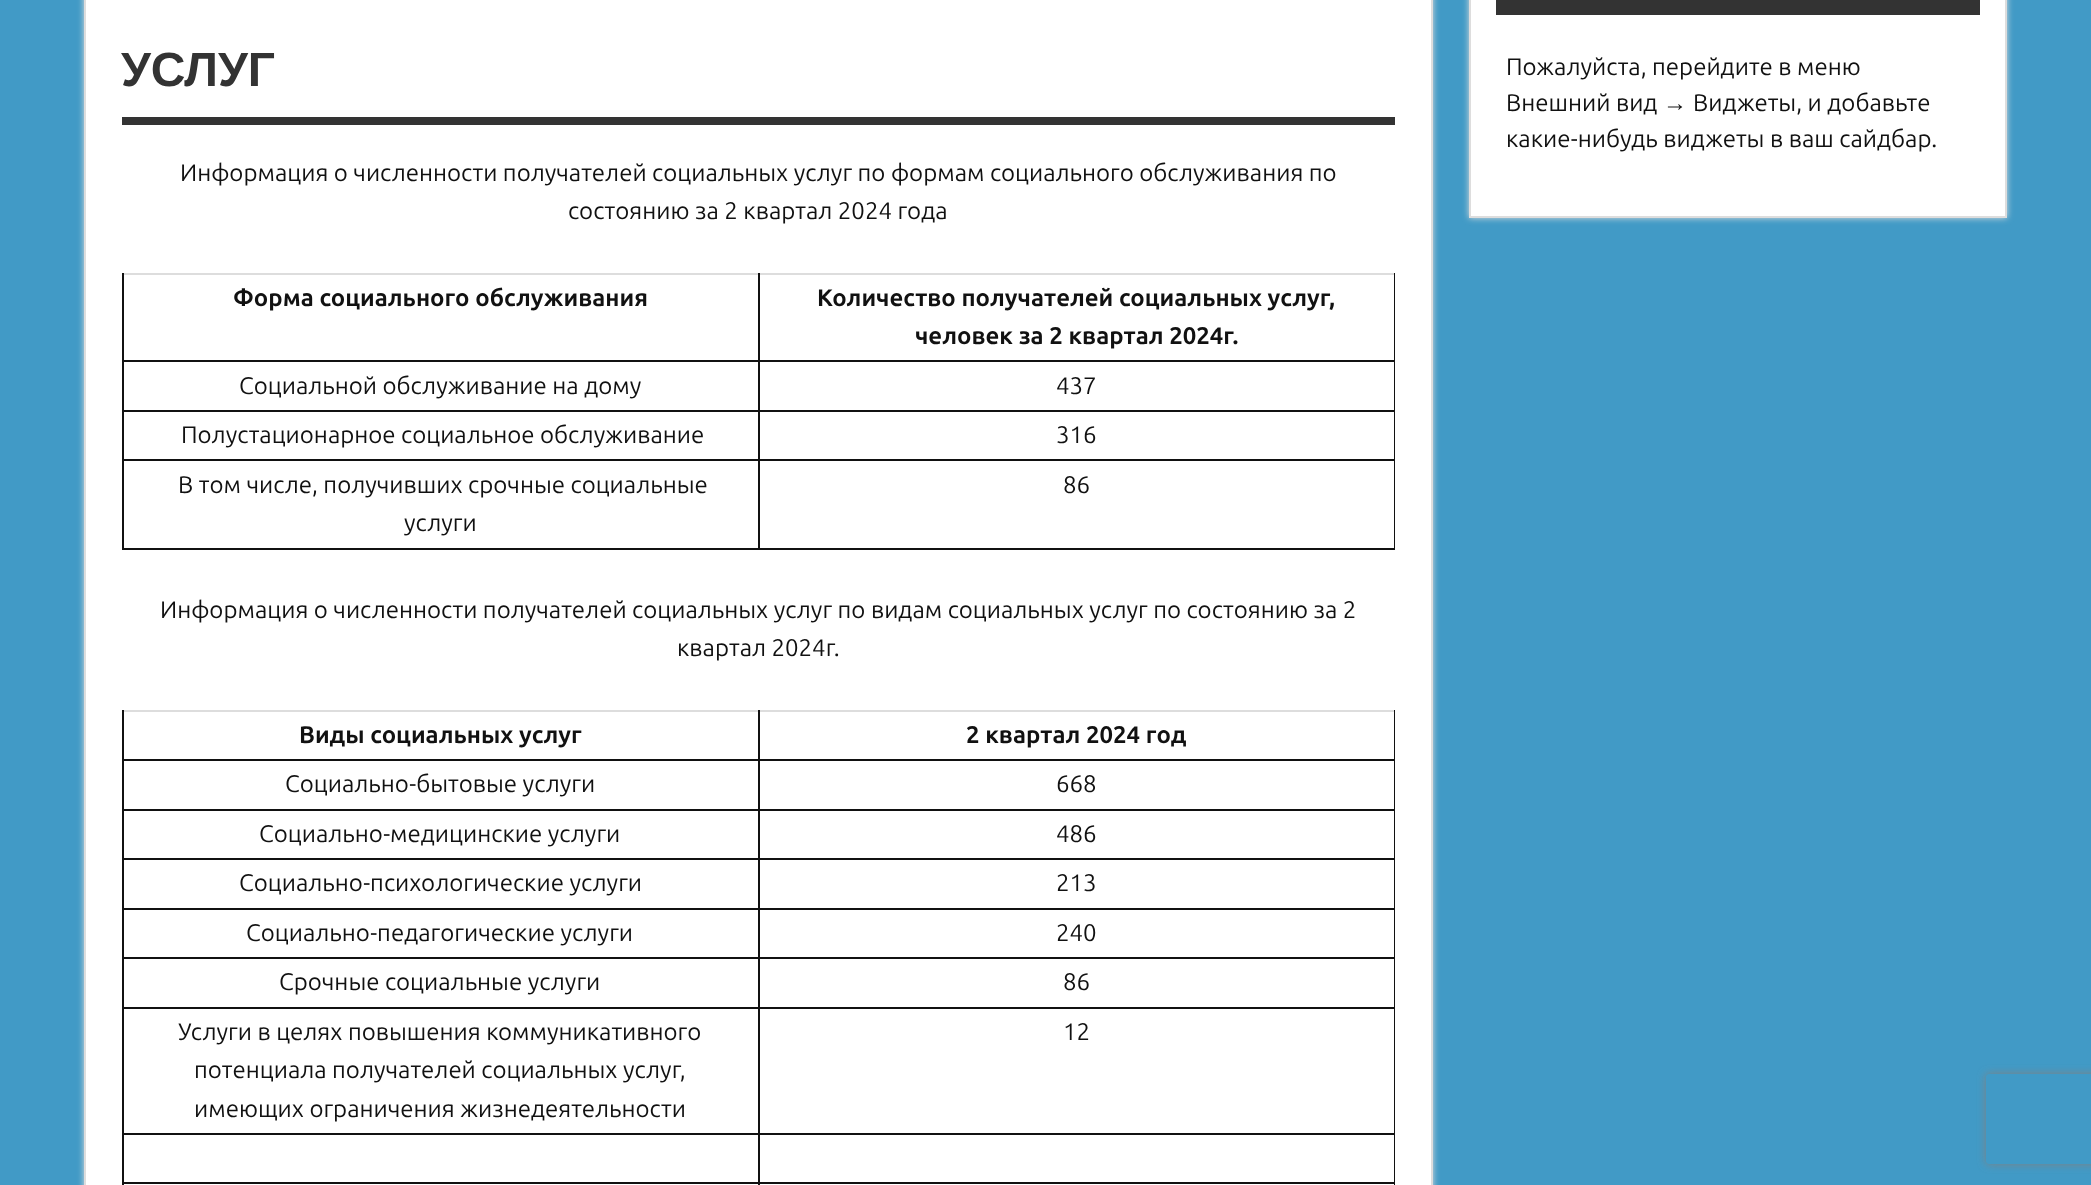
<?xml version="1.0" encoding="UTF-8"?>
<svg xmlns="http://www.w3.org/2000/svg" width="2091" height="1185">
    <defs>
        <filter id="blur1" x="-50%" y="-200%" width="200%" height="500%"><feGaussianBlur stdDeviation="3"/></filter>
        <clipPath id="clip1"><path d="M 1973 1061 H 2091 V 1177 H 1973 Z M 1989 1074 H 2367 C 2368.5 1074 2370 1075.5 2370 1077 V 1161 C 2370 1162.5 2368.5 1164 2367 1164 H 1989 C 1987.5 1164 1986 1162.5 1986 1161 V 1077 C 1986 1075.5 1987.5 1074 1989 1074 Z" clip-rule="evenodd"/></clipPath>
        <filter id="blur2" x="-50%" y="-200%" width="200%" height="500%"><feGaussianBlur stdDeviation="4"/></filter>
    </defs>
    <rect width="100%" height="100%" fill="#419AC6"/>
    <rect x="84" y="-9" width="1349" height="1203" fill="#DDDDDD" filter="url(#blur1)"/>
    <rect x="85" y="-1" width="1347" height="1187" fill="#FFFFFF" stroke="#DDDDDD" stroke-width="2"/>
    <rect x="122" y="117" width="1273" height="8" fill="#333333"/>
    <text x="121" y="86" font-family="Liberation Sans" font-size="48" font-weight="700" fill="#333333">УСЛУГ</text>
    <text x="180" y="181" font-family="Ubuntu" font-size="24" fill="#111111">Информация о численности получателей социальных услуг по формам социального обслуживания по</text>
    <text x="568" y="219" font-family="Ubuntu" font-size="24" fill="#111111">состоянию за 2 квартал 2024 года</text>
    <rect x="760" y="273" width="635" height="2" fill="#DDDDDD"/>
    <rect x="122" y="273" width="637" height="2" fill="#DDDDDD"/>
    <rect x="1394" y="273" width="1" height="276" fill="#111111"/>
    <rect x="758" y="548" width="637" height="2" fill="#111111"/>
    <rect x="758" y="459" width="2" height="90" fill="#111111"/>
    <rect x="758" y="459" width="637" height="2" fill="#111111"/>
    <rect x="758" y="410" width="2" height="51" fill="#111111"/>
    <rect x="758" y="410" width="637" height="2" fill="#111111"/>
    <rect x="758" y="360" width="2" height="51" fill="#111111"/>
    <rect x="758" y="360" width="637" height="2" fill="#111111"/>
    <rect x="758" y="273" width="2" height="89" fill="#111111"/>
    <rect x="122" y="548" width="637" height="2" fill="#111111"/>
    <rect x="122" y="459" width="2" height="90" fill="#111111"/>
    <rect x="122" y="459" width="637" height="2" fill="#111111"/>
    <rect x="122" y="410" width="2" height="51" fill="#111111"/>
    <rect x="122" y="410" width="637" height="2" fill="#111111"/>
    <rect x="122" y="360" width="2" height="51" fill="#111111"/>
    <rect x="122" y="360" width="637" height="2" fill="#111111"/>
    <rect x="122" y="273" width="2" height="89" fill="#111111"/>
    <text x="233" y="306" font-family="Ubuntu" font-size="24" font-weight="700" fill="#111111">Форма социального обслуживания</text>
    <text x="817" y="306" font-family="Ubuntu" font-size="24" font-weight="700" fill="#111111">Количество получателей социальных услуг,</text>
    <text x="915" y="344" font-family="Ubuntu" font-size="24" font-weight="700" fill="#111111">человек за 2 квартал 2024г.</text>
    <text x="239" y="394" font-family="Ubuntu" font-size="24" fill="#111111">Социальной обслуживание на дому</text>
    <text x="1056" y="394" font-family="Ubuntu" font-size="24" fill="#111111">437</text>
    <text x="181" y="443" font-family="Ubuntu" font-size="24" fill="#111111">Полустационарное социальное обслуживание</text>
    <text x="1056" y="443" font-family="Ubuntu" font-size="24" fill="#111111">316</text>
    <text x="178" y="493" font-family="Ubuntu" font-size="24" fill="#111111">В том числе, получивших срочные социальные</text>
    <text x="404" y="531" font-family="Ubuntu" font-size="24" fill="#111111">услуги</text>
    <text x="1063" y="493" font-family="Ubuntu" font-size="24" fill="#111111">86</text>
    <text x="160" y="618" font-family="Ubuntu" font-size="24" fill="#111111">Информация о численности получателей социальных услуг по видам социальных услуг по состоянию за 2</text>
    <text x="677" y="656" font-family="Ubuntu" font-size="24" fill="#111111">квартал 2024г.</text>
    <rect x="760" y="710" width="635" height="2" fill="#DDDDDD"/>
    <rect x="758" y="1182" width="2" height="3" fill="#111111"/>
    <rect x="122" y="1182" width="2" height="3" fill="#111111"/>
    <rect x="1394" y="710" width="1" height="475" fill="#111111"/>
    <rect x="122" y="710" width="637" height="2" fill="#DDDDDD"/>
    <rect x="758" y="1182" width="637" height="2" fill="#111111"/>
    <rect x="758" y="1133" width="2" height="51" fill="#111111"/>
    <rect x="758" y="1133" width="637" height="2" fill="#111111"/>
    <rect x="758" y="1007" width="2" height="127" fill="#111111"/>
    <rect x="758" y="1007" width="637" height="2" fill="#111111"/>
    <rect x="758" y="957" width="2" height="51" fill="#111111"/>
    <rect x="758" y="957" width="637" height="2" fill="#111111"/>
    <rect x="758" y="908" width="2" height="51" fill="#111111"/>
    <rect x="758" y="908" width="637" height="2" fill="#111111"/>
    <rect x="758" y="858" width="2" height="51" fill="#111111"/>
    <rect x="758" y="858" width="637" height="2" fill="#111111"/>
    <rect x="758" y="809" width="2" height="51" fill="#111111"/>
    <rect x="758" y="809" width="637" height="2" fill="#111111"/>
    <rect x="758" y="759" width="2" height="51" fill="#111111"/>
    <rect x="758" y="759" width="637" height="2" fill="#111111"/>
    <rect x="758" y="710" width="2" height="51" fill="#111111"/>
    <rect x="122" y="1182" width="637" height="2" fill="#111111"/>
    <rect x="122" y="1133" width="2" height="51" fill="#111111"/>
    <rect x="122" y="1133" width="637" height="2" fill="#111111"/>
    <rect x="122" y="1007" width="2" height="127" fill="#111111"/>
    <rect x="122" y="1007" width="637" height="2" fill="#111111"/>
    <rect x="122" y="957" width="2" height="51" fill="#111111"/>
    <rect x="122" y="957" width="637" height="2" fill="#111111"/>
    <rect x="122" y="908" width="2" height="51" fill="#111111"/>
    <rect x="122" y="908" width="637" height="2" fill="#111111"/>
    <rect x="122" y="858" width="2" height="51" fill="#111111"/>
    <rect x="122" y="858" width="637" height="2" fill="#111111"/>
    <rect x="122" y="809" width="2" height="51" fill="#111111"/>
    <rect x="122" y="809" width="637" height="2" fill="#111111"/>
    <rect x="122" y="759" width="2" height="51" fill="#111111"/>
    <rect x="122" y="759" width="637" height="2" fill="#111111"/>
    <rect x="122" y="710" width="2" height="51" fill="#111111"/>
    <text x="299" y="743" font-family="Ubuntu" font-size="24" font-weight="700" fill="#111111">Виды социальных услуг</text>
    <text x="966" y="743" font-family="Ubuntu" font-size="24" font-weight="700" fill="#111111">2 квартал 2024 год</text>
    <text x="285" y="792" font-family="Ubuntu" font-size="24" fill="#111111">Социально-бытовые услуги</text>
    <text x="1056" y="792" font-family="Ubuntu" font-size="24" fill="#111111">668</text>
    <text x="259" y="842" font-family="Ubuntu" font-size="24" fill="#111111">Социально-медицинские услуги</text>
    <text x="1056" y="842" font-family="Ubuntu" font-size="24" fill="#111111">486</text>
    <text x="239" y="891" font-family="Ubuntu" font-size="24" fill="#111111">Социально-психологические услуги</text>
    <text x="1056" y="891" font-family="Ubuntu" font-size="24" fill="#111111">213</text>
    <text x="246" y="941" font-family="Ubuntu" font-size="24" fill="#111111">Социально-педагогические услуги</text>
    <text x="1056" y="941" font-family="Ubuntu" font-size="24" fill="#111111">240</text>
    <text x="279" y="990" font-family="Ubuntu" font-size="24" fill="#111111">Срочные социальные услуги</text>
    <text x="1063" y="990" font-family="Ubuntu" font-size="24" fill="#111111">86</text>
    <text x="178" y="1040" font-family="Ubuntu" font-size="24" fill="#111111">Услуги в целях повышения коммуникативного</text>
    <text font-family="Ubuntu" font-size="24" fill="#111111">
        <tspan x="194" y="1078">потенциала получателей социальных услуг,</tspan>
        <tspan x="194" y="1117">имеющих ограничения жизнедеятельности</tspan>
    </text>
    <text x="1063" y="1040" font-family="Ubuntu" font-size="24" fill="#111111">12</text>
    <rect x="1469" y="-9" width="538" height="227" fill="#DDDDDD" filter="url(#blur1)"/>
    <rect x="1470" y="-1" width="536" height="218" fill="#FFFFFF" stroke="#DDDDDD" stroke-width="2"/>
    <rect x="1496" y="0" width="484" height="15" fill="#333333"/>
    <text font-family="Ubuntu" font-size="24" fill="#111111">
        <tspan x="1506" y="75">Пожалуйста, перейдите в меню</tspan>
        <tspan x="1506" y="111">Внешний вид</tspan>
    </text>
    <text x="1663" y="111" font-family="Liberation Sans" font-size="24" fill="#111111">→</text>
    <text x="1693" y="111" font-family="Ubuntu" font-size="24" fill="#111111">Виджеты, и добавьте</text>
    <text x="1506" y="147" font-family="Ubuntu" font-size="24" fill="#111111">какие-нибудь виджеты в ваш сайдбар.</text>
    <g clip-path="url(#clip1)">
        <rect x="1986" y="1074" width="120" height="90" rx="3" fill="#808080" filter="url(#blur2)"/>
    </g>
</svg>
